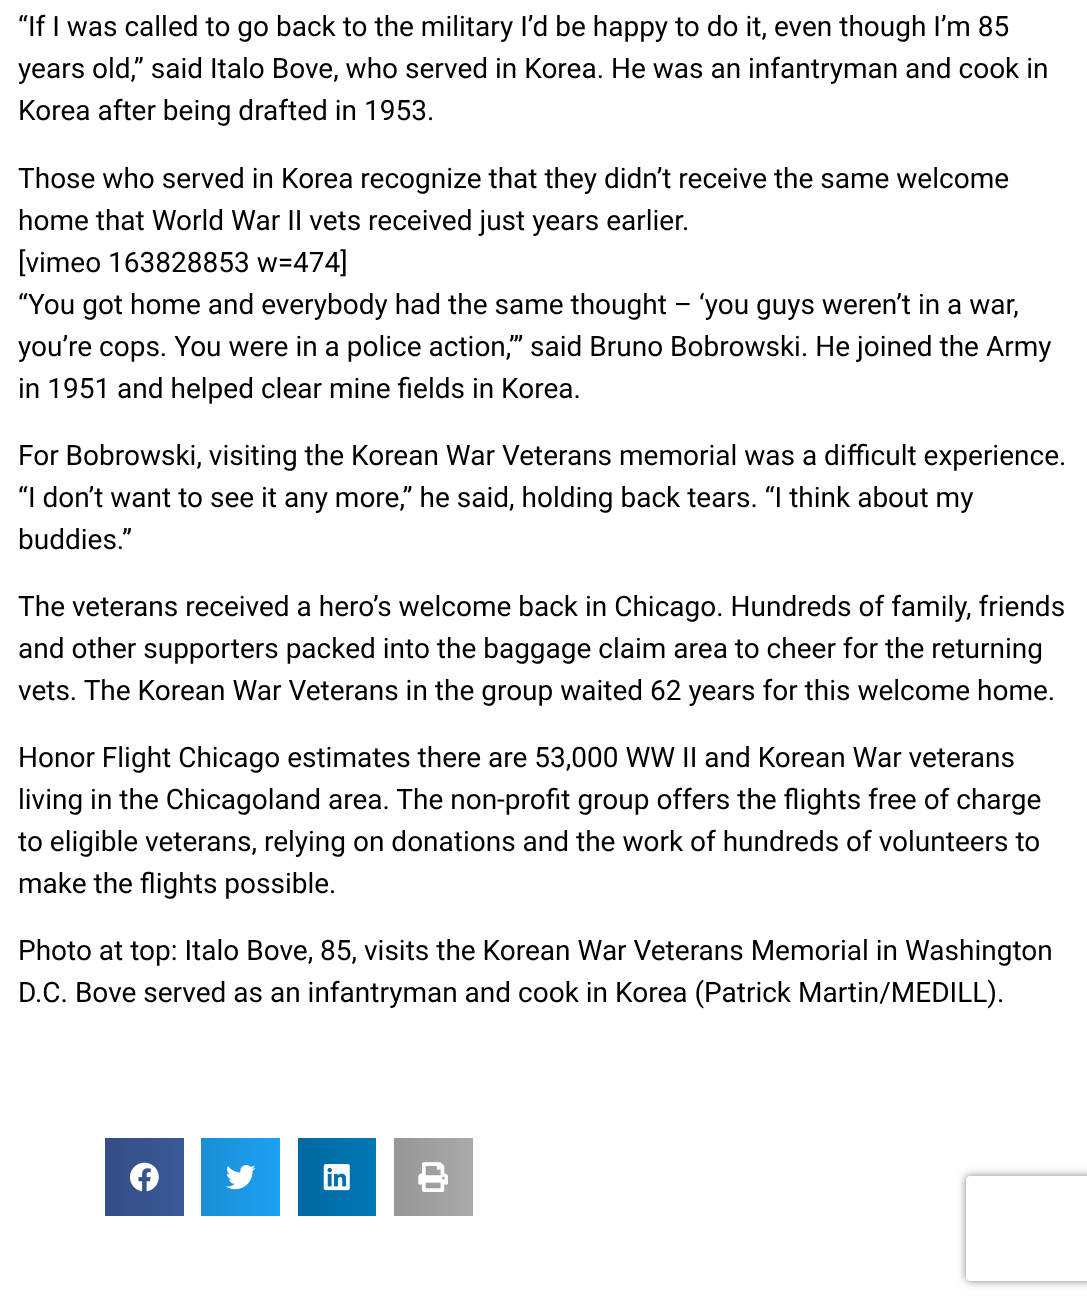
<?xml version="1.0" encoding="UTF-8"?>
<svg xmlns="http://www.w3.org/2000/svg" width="1087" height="1305">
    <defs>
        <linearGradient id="g1" gradientUnits="userSpaceOnUse" x1="105" y1="1177" x2="184" y2="1177"><stop offset="0" stop-color="#344E86"/><stop offset="1" stop-color="#3B5998"/></linearGradient>
        <linearGradient id="g2" gradientUnits="userSpaceOnUse" x1="201" y1="1177" x2="280" y2="1177"><stop offset="0" stop-color="#1A8ED5"/><stop offset="1" stop-color="#1DA1F2"/></linearGradient>
        <linearGradient id="g3" gradientUnits="userSpaceOnUse" x1="298" y1="1177" x2="376" y2="1177"><stop offset="0" stop-color="#00699F"/><stop offset="1" stop-color="#0077B5"/></linearGradient>
        <linearGradient id="g4" gradientUnits="userSpaceOnUse" x1="394" y1="1177" x2="473" y2="1177"><stop offset="0" stop-color="#969696"/><stop offset="1" stop-color="#AAAAAA"/></linearGradient>
        <clipPath id="clip1"><path d="M 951 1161 H 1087 V 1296 H 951 Z M 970 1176 H 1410 C 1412 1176 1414 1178 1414 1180 V 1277 C 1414 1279 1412 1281 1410 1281 H 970 C 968 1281 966 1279 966 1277 V 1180 C 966 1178 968 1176 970 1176 Z" clip-rule="evenodd"/></clipPath>
        <filter id="blur1" x="-50%" y="-200%" width="200%" height="500%"><feGaussianBlur stdDeviation="4.5"/></filter>
    </defs>
    <rect width="100%" height="100%" fill="#FFFFFF"/>
    <text font-family="Roboto" font-size="28" fill="#000000">
        <tspan x="18" y="36">“If I was called to go back to the military I’d be happy to do it, even though I’m 85</tspan>
        <tspan x="18" y="78">years old,” said Italo Bove, who served in Korea. He was an infantryman and cook in</tspan>
        <tspan x="18" y="120">Korea after being drafted in 1953.</tspan>
    </text>
    <text font-family="Roboto" font-size="28" fill="#000000">
        <tspan x="18" y="188">Those who served in Korea recognize that they didn’t receive the same welcome</tspan>
        <tspan x="18" y="230">home that World War II vets received just years earlier.</tspan>
        <tspan x="18" y="272">[vimeo 163828853 w=474]</tspan>
        <tspan x="18" y="314">“You got home and everybody had the same thought – ‘you guys weren’t in a war,</tspan>
        <tspan x="18" y="356">you’re cops. You were in a police action,’” said Bruno Bobrowski. He joined the Army</tspan>
        <tspan x="18" y="398">in 1951 and helped clear mine fields in Korea.</tspan>
    </text>
    <text font-family="Roboto" font-size="28" fill="#000000">
        <tspan x="18" y="465">For Bobrowski, visiting the Korean War Veterans memorial was a difficult experience.</tspan>
        <tspan x="18" y="507">“I don’t want to see it any more,” he said, holding back tears. “I think about my</tspan>
        <tspan x="18" y="549">buddies.”</tspan>
    </text>
    <text font-family="Roboto" font-size="28" fill="#000000">
        <tspan x="18" y="616">The veterans received a hero’s welcome back in Chicago. Hundreds of family, friends</tspan>
        <tspan x="18" y="658">and other supporters packed into the baggage claim area to cheer for the returning</tspan>
        <tspan x="18" y="700">vets. The Korean War Veterans in the group waited 62 years for this welcome home.</tspan>
    </text>
    <text font-family="Roboto" font-size="28" fill="#000000">
        <tspan x="18" y="767">Honor Flight Chicago estimates there are 53,000 WW II and Korean War veterans</tspan>
        <tspan x="18" y="809">living in the Chicagoland area. The non-profit group offers the flights free of charge</tspan>
        <tspan x="18" y="851">to eligible veterans, relying on donations and the work of hundreds of volunteers to</tspan>
        <tspan x="18" y="893">make the flights possible.</tspan>
    </text>
    <text font-family="Roboto" font-size="28" fill="#000000">
        <tspan x="18" y="960">Photo at top: Italo Bove, 85, visits the Korean War Veterans Memorial in Washington</tspan>
        <tspan x="18" y="1002">D.C. Bove served as an infantryman and cook in Korea (Patrick Martin/MEDILL).</tspan>
    </text>
    <rect x="105" y="1138" width="79" height="78" fill="url(#g1)"/>
    <image x="130" y="1162" width="29" height="30" href="img_01.png"/>
    <rect x="201" y="1138" width="79" height="78" fill="url(#g2)"/>
    <image x="226" y="1165" width="30" height="25" href="img_02.png"/>
    <rect x="298" y="1138" width="78" height="78" fill="url(#g3)"/>
    <image x="323" y="1164" width="27" height="27" href="img_03.png"/>
    <rect x="394" y="1138" width="79" height="78" fill="url(#g4)"/>
    <image x="418" y="1162" width="30" height="30" href="img_04.png"/>
    <g clip-path="url(#clip1)">
        <rect x="966" y="1176" width="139" height="105" rx="4" fill="#808080" filter="url(#blur1)"/>
    </g>
</svg>
